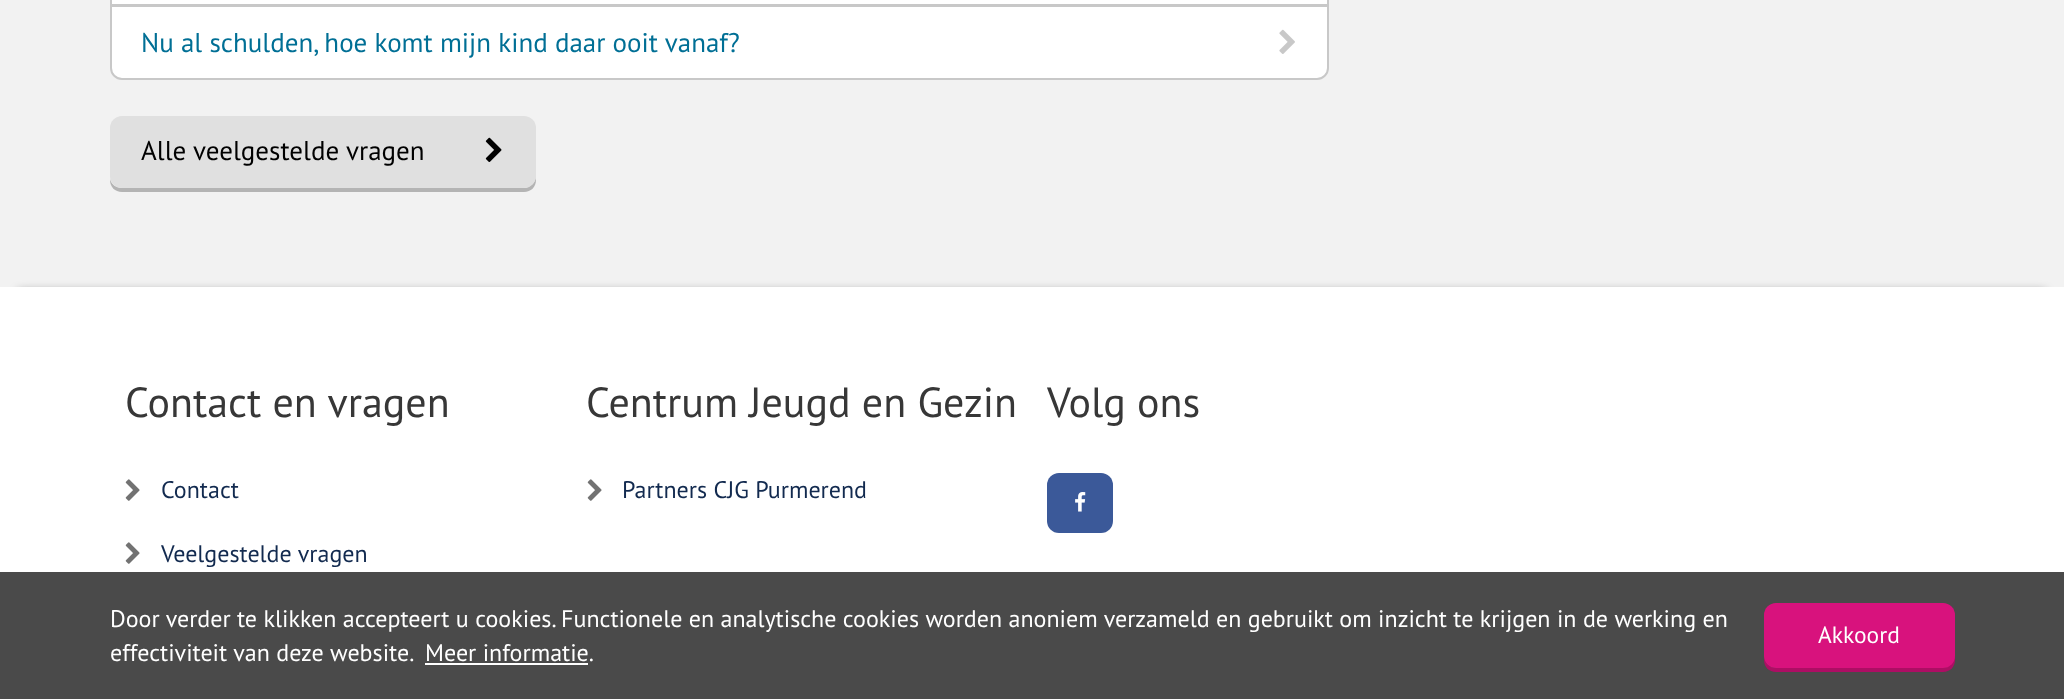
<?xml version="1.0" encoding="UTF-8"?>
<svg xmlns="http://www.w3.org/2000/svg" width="2064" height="699">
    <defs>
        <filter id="blur1" x="-50%" y="-200%" width="200%" height="500%"><feGaussianBlur stdDeviation="5"/></filter>
    </defs>
    <rect width="100%" height="100%" fill="#F2F2F2"/>
    <rect x="111" y="-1" width="1217" height="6" fill="#FFFFFF" stroke="#C8C8C8" stroke-width="2"/>
    <path d="M 111 6 H 1328 V 68 C 1328 74 1323 79 1317 79 H 122 C 116 79 111 74 111 68 Z" fill="#FFFFFF" stroke="#C8C8C8" stroke-width="2"/>
    <text x="141" y="52" font-family="PT Sans" font-size="27" fill="#006F95">Nu al schulden, hoe komt mijn kind daar ooit vanaf?</text>
    <image x="1279" y="29" width="16" height="25" href="img_01.png"/>
    <path d="M 110 179 V 180 C 110 187 115 192 122 192 H 524 C 531 192 536 187 536 180 V 132 V 129 V 176 C 536 182 530 188 524 188 H 122 C 116 188 111 184 110 179 Z" fill="#B4B4B4"/>
    <rect x="110" y="116" width="426" height="72" rx="12" fill="#E0E0E0"/>
    <text x="141" y="160" font-family="PT Sans" font-size="27" fill="#000000">Alle veelgestelde vragen</text>
    <image x="485" y="137" width="17" height="25" href="img_02.png"/>
    <rect x="18" y="291" width="2028" height="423" fill="#000000" fill-opacity="0.45" filter="url(#blur1)"/>
    <rect x="0" y="287" width="2064" height="285" fill="#FFFFFF"/>
    <text x="125" y="417" font-family="PT Sans" font-size="42" fill="#373737">Contact en vragen</text>
    <image x="125" y="479" width="15" height="22" href="img_03.png"/>
    <text x="161" y="498" font-family="PT Sans" font-size="24" fill="#122A4F">Contact</text>
    <image x="125" y="542" width="15" height="22" href="img_03.png"/>
    <text x="161" y="562" font-family="PT Sans" font-size="24" fill="#122A4F">Veelgestelde vragen</text>
    <text x="586" y="417" font-family="PT Sans" font-size="42" fill="#373737">Centrum Jeugd en Gezin</text>
    <image x="587" y="479" width="15" height="22" href="img_03.png"/>
    <text x="622" y="498" font-family="PT Sans" font-size="24" fill="#122A4F">Partners CJG Purmerend</text>
    <text x="1047" y="417" font-family="PT Sans" font-size="42" fill="#373737">Volg ons</text>
    <rect x="1047" y="473" width="66" height="60" rx="12" fill="#3B5999"/>
    <image x="1075" y="492" width="11" height="20" href="img_04.png"/>
    <rect x="0" y="572" width="2064" height="127" fill="#4A4A4A"/>
    <text font-family="PT Sans" font-size="24" fill="#FFFFFF">
        <tspan x="110" y="627">Door verder te klikken accepteert u cookies. Functionele en analytische cookies worden anoniem verzameld en gebruikt om inzicht te krijgen in de werking en</tspan>
        <tspan x="110" y="661">effectiviteit van deze website.</tspan>
    </text>
    <text x="425" y="661" font-family="PT Sans" font-size="24" fill="#FFFFFF">Meer informatie.</text>
    <rect x="425" y="663" width="163" height="2" fill="#FFFFFF"/>
    <path d="M 1764 656 V 660 C 1764 667 1769 672 1776 672 H 1943 C 1950 672 1955 667 1955 660 V 620 L 1954 617 V 656 C 1954 662 1949 668 1942 668 H 1776 C 1769 668 1764 662 1764 656 Z" fill="#AD0E64"/>
    <rect x="1764" y="603" width="191" height="65" rx="12" fill="#D8127D"/>
    <text x="1818" y="643" font-family="PT Sans" font-size="23.5" fill="#FFFFFF">Akkoord</text>
</svg>
